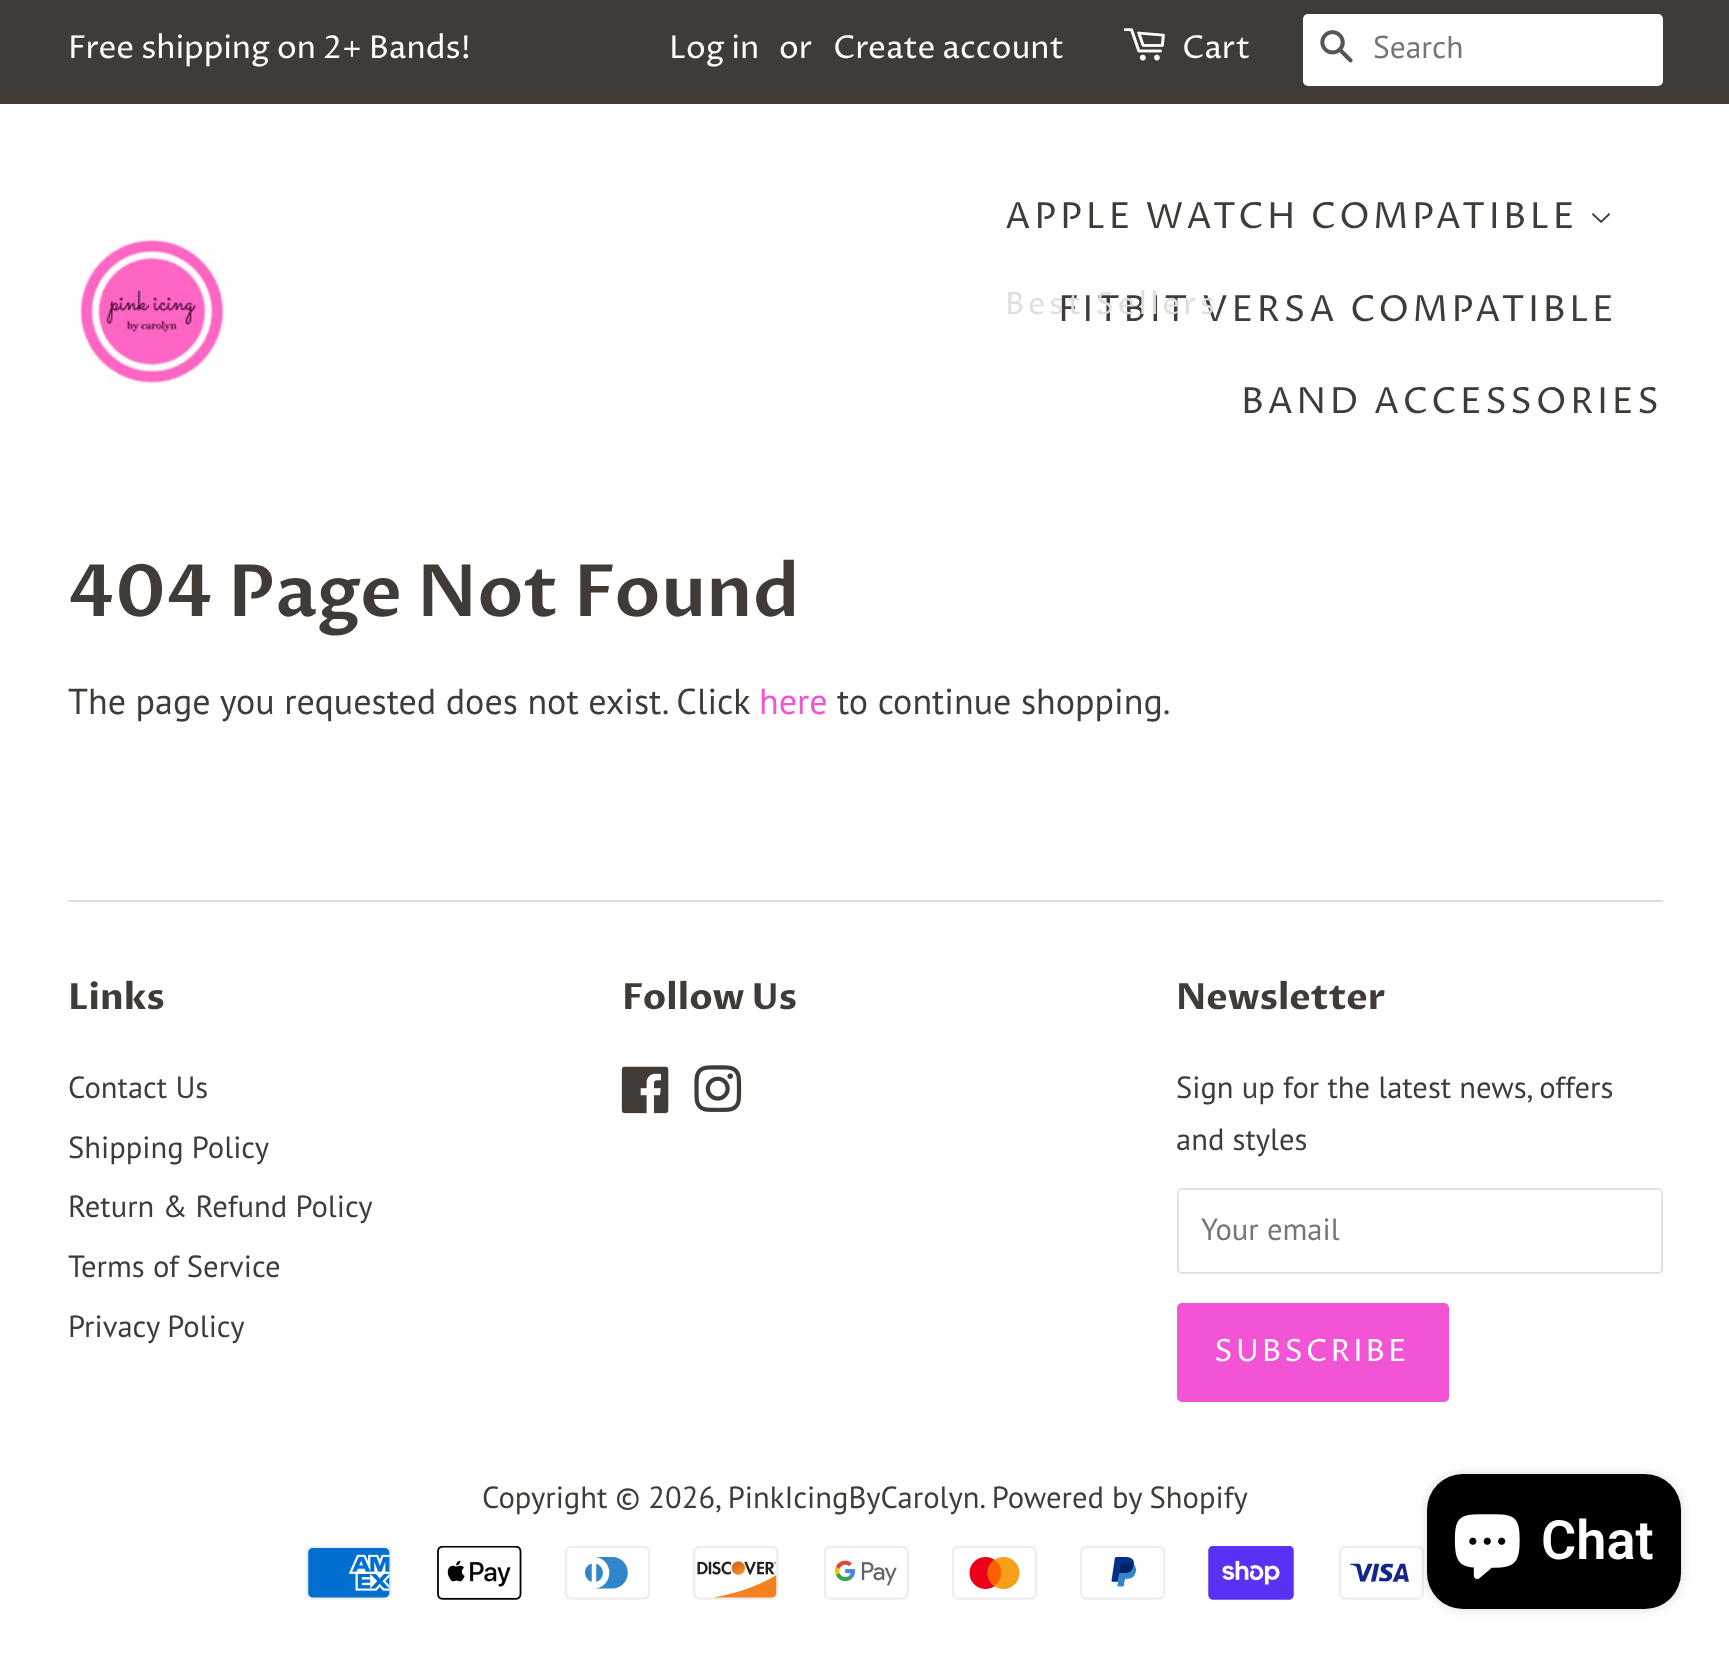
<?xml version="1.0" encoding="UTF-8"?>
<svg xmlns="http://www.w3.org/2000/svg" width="1729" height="1654">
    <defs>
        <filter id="blur1" x="-50%" y="-200%" width="200%" height="500%"><feGaussianBlur stdDeviation="5.5"/></filter>
    </defs>
    <rect width="100%" height="100%" fill="#FFFFFF"/>
    <rect x="0" y="0" width="1729" height="104" fill="#403B37"/>
    <text x="68" y="58" font-family="Proza Libre" font-size="31.5" fill="#FFFFFF">Free shipping on 2+ Bands!</text>
    <text x="669" y="58" font-family="Proza Libre" font-size="31.5" fill="#FFFFFF">Log in</text>
    <text x="779" y="58" font-family="Proza Libre" font-size="31.5" fill="#FFFFFF">or</text>
    <text x="833" y="58" font-family="Proza Libre" font-size="31.5" fill="#FFFFFF">Create account</text>
    <image x="1123" y="28" width="42" height="33" href="img_01.png"/>
    <text x="1182" y="58" font-family="Proza Libre" font-size="31.5" fill="#FFFFFF">Cart</text>
    <rect x="1303" y="14" width="360" height="72" rx="5" fill="#FFFFFF"/>
    <image x="1320" y="30" width="33" height="33" href="img_02.png"/>
    <text x="1373" y="58" font-family="PT Sans" font-size="31.5" fill="#757575">Search</text>
    <image x="79" y="238" width="146" height="147" href="img_03.png"/>
    <text x="1005" y="228" font-family="Proza Libre" font-size="36" letter-spacing="3.6" fill="#403B37">APPLE WATCH COMPATIBLE</text>
    <image x="1592" y="213" width="18" height="10" href="img_04.png"/>
    <text x="1058" y="321" font-family="Proza Libre" font-size="36" letter-spacing="3.6" fill="#403B37">FITBIT VERSA COMPATIBLE</text>
    <text x="1005" y="314" font-family="Proza Libre" font-size="30.6" letter-spacing="3.6" fill="#DFDEDD">Best Sellers</text>
    <text x="1241" y="413" font-family="Proza Libre" font-size="36" letter-spacing="3.6" fill="#403B37">BAND ACCESSORIES</text>
    <text x="68" y="616" font-family="Proza Libre" font-size="72" font-weight="600" fill="#403B37">404 Page Not Found</text>
    <text x="68" y="714" font-family="PT Sans" font-size="36" fill="#403B37">The page you requested does not exist. Click</text>
    <text x="759" y="714" font-family="PT Sans" font-size="36" fill="#F254D5">here</text>
    <text x="837" y="714" font-family="PT Sans" font-size="36" fill="#403B37">to continue shopping.</text>
    <rect x="68" y="900" width="1595" height="2" fill="#DDDDDD"/>
    <text x="68" y="1009" font-family="Proza Libre" font-size="36" font-weight="700" fill="#403B37">Links</text>
    <text font-family="PT Sans" font-size="30.6" fill="#403B37">
        <tspan x="68" y="1098">Contact Us</tspan>
        <tspan x="68" y="1158">Shipping Policy</tspan>
        <tspan x="68" y="1217">Return &amp; Refund Policy</tspan>
        <tspan x="68" y="1277">Terms of Service</tspan>
        <tspan x="68" y="1337">Privacy Policy</tspan>
    </text>
    <text x="622" y="1009" font-family="Proza Libre" font-size="36" font-weight="700" fill="#403B37">Follow Us</text>
    <image x="621" y="1066" width="48" height="48" href="img_05.png"/>
    <image x="694" y="1065" width="48" height="47" href="img_06.png"/>
    <text x="1176" y="1009" font-family="Proza Libre" font-size="36" font-weight="700" fill="#403B37">Newsletter</text>
    <text font-family="PT Sans" font-size="30.6" fill="#403B37">
        <tspan x="1176" y="1098">Sign up for the latest news, offers</tspan>
        <tspan x="1176" y="1150">and styles</tspan>
    </text>
    <rect x="1178" y="1189" width="484" height="84" rx="4" fill="none" stroke="#E2E2E1" stroke-width="2"/>
    <text x="1201" y="1240" font-family="PT Sans" font-size="30.6" fill="#757575">Your email</text>
    <rect x="1177" y="1303" width="272" height="99" rx="5" fill="#F254D5"/>
    <text x="1214" y="1361" font-family="Proza Libre" font-size="30.6" letter-spacing="3" fill="#FFFFFF">SUBSCRIBE</text>
    <text x="482" y="1508" font-family="PT Sans" font-size="30.6" fill="#403B37">Copyright © 2026, PinkIcingByCarolyn. Powered by Shopify</text>
    <image x="306" y="1546" width="86" height="54" href="img_07.png"/>
    <image x="437" y="1546" width="85" height="54" href="img_08.png"/>
    <image x="565" y="1546" width="85" height="54" href="img_09.png"/>
    <image x="693" y="1546" width="86" height="54" href="img_10.png"/>
    <image x="824" y="1546" width="85" height="54" href="img_11.png"/>
    <image x="952" y="1546" width="85" height="54" href="img_12.png"/>
    <image x="1080" y="1546" width="86" height="54" href="img_13.png"/>
    <image x="1208" y="1546" width="86" height="54" href="img_14.png"/>
    <image x="1339" y="1546" width="85" height="54" href="img_15.png"/>
    <rect x="1427" y="1474" width="254" height="135" rx="36" fill="#000000" fill-opacity="0.15" filter="url(#blur1)"/>
    <rect x="1427" y="1474" width="254" height="135" rx="36" fill="#000000"/>
    <image x="1454" y="1514" width="66" height="65" href="img_16.png"/>
    <text x="1541" y="1559" font-family="Roboto" font-size="54" font-weight="600" fill="#FFFFFF">Chat</text>
</svg>
